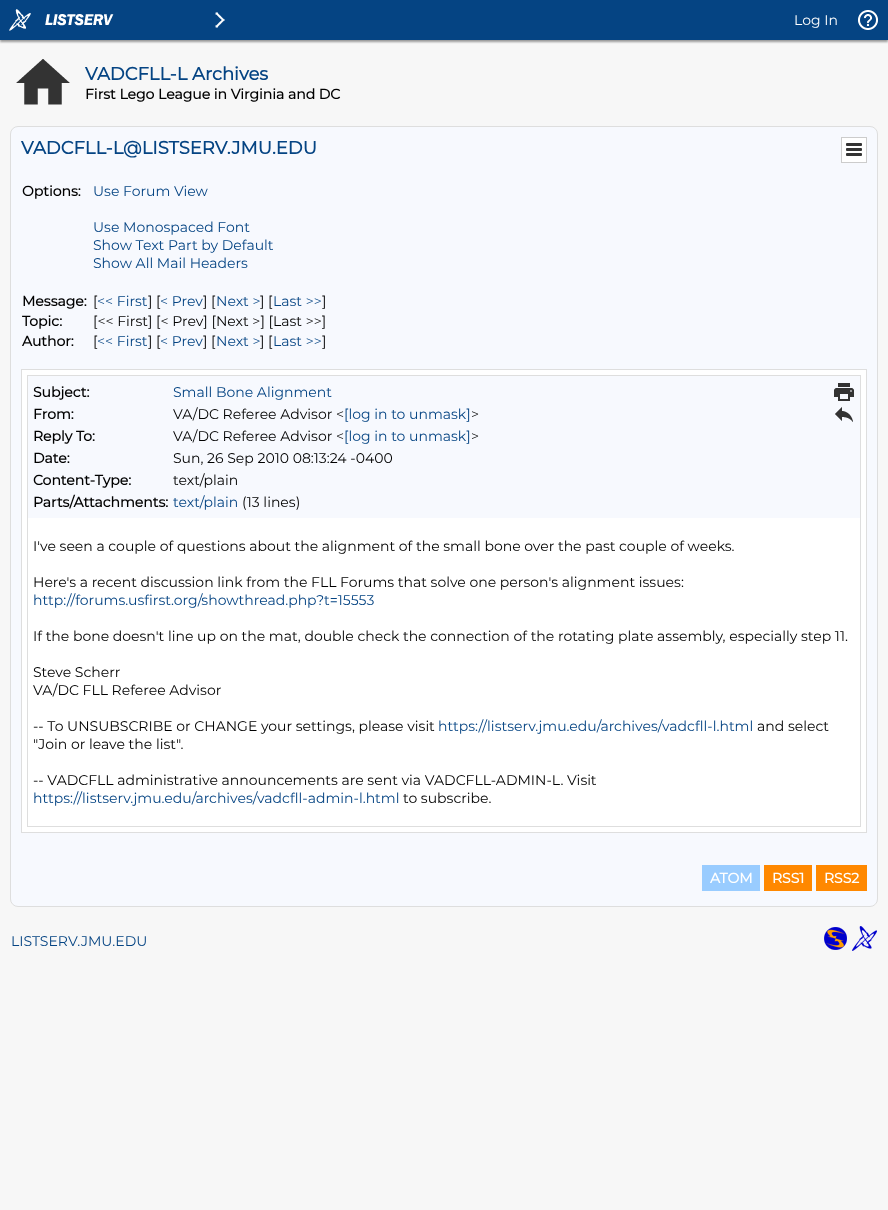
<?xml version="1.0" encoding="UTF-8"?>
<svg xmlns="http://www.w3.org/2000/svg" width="888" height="1210">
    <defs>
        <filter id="blur1" x="-50%" y="-200%" width="200%" height="500%"><feGaussianBlur stdDeviation="1"/></filter>
    </defs>
    <rect width="100%" height="100%" fill="#F7F7F7"/>
    <rect x="0" y="2" width="888" height="40" fill="#999999" filter="url(#blur1)"/>
    <rect x="0" y="0" width="888" height="40" fill="#054483"/>
    <image x="9" y="9" width="22" height="22" href="img_01.png"/>
    <image x="45" y="14" width="69" height="12" href="img_02.png"/>
    <image x="215" y="12" width="10" height="16" href="img_03.png"/>
    <text x="794" y="25" font-family="Montserrat" font-size="14" font-weight="100" fill="#FFFFFF">Log In</text>
    <image x="858" y="10" width="20" height="20" href="img_04.png"/>
    <image x="16" y="59" width="54" height="46" href="img_05.png"/>
    <text x="85" y="80" font-family="Montserrat" font-size="18" font-weight="700" fill="#054483">VADCFLL-L Archives</text>
    <text x="85" y="99" font-family="Montserrat" font-size="14" font-weight="700" fill="#000000">First Lego League in Virginia and DC</text>
    <rect x="10.5" y="126.5" width="867" height="780" rx="7.5" fill="#F7F9FE" stroke="#DEDEDE"/>
    <text x="21" y="154" font-family="Montserrat" font-size="18" font-weight="700" fill="#054483">VADCFLL-L@LISTSERV.JMU.EDU</text>
    <rect x="841.5" y="137.5" width="25" height="25" fill="#FFFFFF" stroke="#CCCCCC"/>
    <image x="846" y="143" width="16" height="13" href="img_06.png"/>
    <text x="22" y="196" font-family="Montserrat" font-size="14" font-weight="700" fill="#000000">Options:</text>
    <text x="93" y="196" font-family="Montserrat" font-size="14" font-weight="100" fill="#054483">Use Forum View</text>
    <text font-family="Montserrat" font-size="14" font-weight="100" fill="#054483">
        <tspan x="93" y="232">Use Monospaced Font</tspan>
        <tspan x="93" y="250">Show Text Part by Default</tspan>
        <tspan x="93" y="268">Show All Mail Headers</tspan>
    </text>
    <text x="22" y="306" font-family="Montserrat" font-size="14" font-weight="700" fill="#000000">Message:</text>
    <text x="93" y="306" font-family="Montserrat" font-size="14" font-weight="100" fill="#000000">[</text>
    <text x="97" y="306" font-family="Montserrat" font-size="14" font-weight="100" fill="#054483">&lt;&lt; First</text>
    <text x="148" y="306" font-family="Montserrat" font-size="14" font-weight="100" fill="#000000">] [</text>
    <text x="160" y="306" font-family="Montserrat" font-size="14" font-weight="100" fill="#054483">&lt; Prev</text>
    <text x="203" y="306" font-family="Montserrat" font-size="14" font-weight="100" fill="#000000">] [</text>
    <text x="216" y="306" font-family="Montserrat" font-size="14" font-weight="100" fill="#054483">Next &gt;</text>
    <text x="260" y="306" font-family="Montserrat" font-size="14" font-weight="100" fill="#000000">] [</text>
    <text x="273" y="306" font-family="Montserrat" font-size="14" font-weight="100" fill="#054483">Last &gt;&gt;</text>
    <text x="322" y="306" font-family="Montserrat" font-size="14" font-weight="100" fill="#000000">]</text>
    <text x="22" y="326" font-family="Montserrat" font-size="14" font-weight="700" fill="#000000">Topic:</text>
    <text x="93" y="326" font-family="Montserrat" font-size="14" font-weight="100" fill="#000000">[&lt;&lt; First] [&lt; Prev] [Next &gt;] [Last &gt;&gt;]</text>
    <text x="22" y="346" font-family="Montserrat" font-size="14" font-weight="700" fill="#000000">Author:</text>
    <text x="93" y="346" font-family="Montserrat" font-size="14" font-weight="100" fill="#000000">[</text>
    <text x="97" y="346" font-family="Montserrat" font-size="14" font-weight="100" fill="#054483">&lt;&lt; First</text>
    <text x="148" y="346" font-family="Montserrat" font-size="14" font-weight="100" fill="#000000">] [</text>
    <text x="160" y="346" font-family="Montserrat" font-size="14" font-weight="100" fill="#054483">&lt; Prev</text>
    <text x="203" y="346" font-family="Montserrat" font-size="14" font-weight="100" fill="#000000">] [</text>
    <text x="216" y="346" font-family="Montserrat" font-size="14" font-weight="100" fill="#054483">Next &gt;</text>
    <text x="260" y="346" font-family="Montserrat" font-size="14" font-weight="100" fill="#000000">] [</text>
    <text x="273" y="346" font-family="Montserrat" font-size="14" font-weight="100" fill="#054483">Last &gt;&gt;</text>
    <text x="322" y="346" font-family="Montserrat" font-size="14" font-weight="100" fill="#000000">]</text>
    <rect x="21.5" y="369.5" width="845" height="463" fill="none" stroke="#DEDEDE"/>
    <rect x="22" y="370" width="844" height="462" fill="#FFFFFF"/>
    <rect x="27.5" y="375.5" width="833" height="451" fill="none" stroke="#DEDEDE"/>
    <rect x="28" y="376" width="832" height="142" fill="#F7F9FE"/>
    <text x="33" y="397" font-family="Montserrat" font-size="14" font-weight="700" fill="#000000">Subject:</text>
    <text x="173" y="397" font-family="Montserrat" font-size="14" font-weight="100" fill="#054483">Small Bone Alignment</text>
    <text x="33" y="419" font-family="Montserrat" font-size="14" font-weight="700" fill="#000000">From:</text>
    <text x="173" y="419" font-family="Montserrat" font-size="14" font-weight="100" fill="#000000">VA/DC Referee Advisor &lt;</text>
    <text x="344" y="419" font-family="Montserrat" font-size="14" font-weight="100" fill="#054483">[log in to unmask]</text>
    <text x="471" y="419" font-family="Montserrat" font-size="14" font-weight="100" fill="#000000">&gt;</text>
    <text x="33" y="441" font-family="Montserrat" font-size="14" font-weight="700" fill="#000000">Reply To:</text>
    <text x="173" y="441" font-family="Montserrat" font-size="14" font-weight="100" fill="#000000">VA/DC Referee Advisor &lt;</text>
    <text x="344" y="441" font-family="Montserrat" font-size="14" font-weight="100" fill="#054483">[log in to unmask]</text>
    <text x="471" y="441" font-family="Montserrat" font-size="14" font-weight="100" fill="#000000">&gt;</text>
    <text x="33" y="463" font-family="Montserrat" font-size="14" font-weight="700" fill="#000000">Date:</text>
    <text x="173" y="463" font-family="Montserrat" font-size="14" font-weight="100" fill="#000000">Sun, 26 Sep 2010 08:13:24 -0400</text>
    <text x="33" y="485" font-family="Montserrat" font-size="14" font-weight="700" fill="#000000">Content-Type:</text>
    <text x="173" y="485" font-family="Montserrat" font-size="14" font-weight="100" fill="#000000">text/plain</text>
    <text x="33" y="507" font-family="Montserrat" font-size="14" font-weight="700" fill="#000000">Parts/Attachments:</text>
    <text x="173" y="507" font-family="Montserrat" font-size="14" font-weight="100" fill="#054483">text/plain</text>
    <text x="242" y="507" font-family="Montserrat" font-size="14" font-weight="100" fill="#000000">(13 lines)</text>
    <image x="834" y="383" width="20" height="18" href="img_07.png"/>
    <image x="835" y="407" width="18" height="15" href="img_08.png"/>
    <text x="33" y="551" font-family="Montserrat" font-size="14" font-weight="100" fill="#000000">I've seen a couple of questions about the alignment of the small bone over the past couple of weeks.</text>
    <text x="33" y="587" font-family="Montserrat" font-size="14" font-weight="100" fill="#000000">Here's a recent discussion link from the FLL Forums that solve one person's alignment issues:</text>
    <text x="33" y="605" font-family="Montserrat" font-size="14" font-weight="100" fill="#054483">http://forums.usfirst.org/showthread.php?t=15553</text>
    <text x="33" y="641" font-family="Montserrat" font-size="14" font-weight="100" fill="#000000">If the bone doesn't line up on the mat, double check the connection of the rotating plate assembly, especially step 11.</text>
    <text font-family="Montserrat" font-size="14" font-weight="100" fill="#000000">
        <tspan x="33" y="677">Steve Scherr</tspan>
        <tspan x="33" y="695">VA/DC FLL Referee Advisor</tspan>
    </text>
    <text x="33" y="731" font-family="Montserrat" font-size="14" font-weight="100" fill="#000000">-- To UNSUBSCRIBE or CHANGE your settings, please visit</text>
    <text x="438" y="731" font-family="Montserrat" font-size="14" font-weight="100" fill="#054483">https://listserv.jmu.edu/archives/vadcfll-l.html</text>
    <text x="757" y="731" font-family="Montserrat" font-size="14" font-weight="100" fill="#000000">and select</text>
    <text x="33" y="749" font-family="Montserrat" font-size="14" font-weight="100" fill="#000000">"Join or leave the list".</text>
    <text x="33" y="785" font-family="Montserrat" font-size="14" font-weight="100" fill="#000000">-- VADCFLL administrative announcements are sent via VADCFLL-ADMIN-L. Visit</text>
    <text x="33" y="803" font-family="Montserrat" font-size="14" font-weight="100" fill="#054483">https://listserv.jmu.edu/archives/vadcfll-admin-l.html</text>
    <text x="403" y="803" font-family="Montserrat" font-size="14" font-weight="100" fill="#000000">to subscribe.</text>
    <rect x="702" y="865" width="58" height="26" fill="#99CCFF"/>
    <text x="710" y="883" font-family="Montserrat" font-size="14" font-weight="700" fill="#FFFFFF">ATOM</text>
    <rect x="764" y="865" width="48" height="26" fill="#FF8800"/>
    <text x="772" y="883" font-family="Montserrat" font-size="14" font-weight="700" fill="#FFFFFF">RSS1</text>
    <rect x="816" y="865" width="51" height="26" fill="#FF8800"/>
    <text x="824" y="883" font-family="Montserrat" font-size="14" font-weight="700" fill="#FFFFFF">RSS2</text>
    <text x="11" y="946" font-family="Montserrat" font-size="14" font-weight="100" fill="#054483">LISTSERV.JMU.EDU</text>
    <image x="824" y="927" width="23" height="23" href="img_09.png"/>
    <image x="852" y="926" width="25" height="25" href="img_10.png"/>
</svg>
